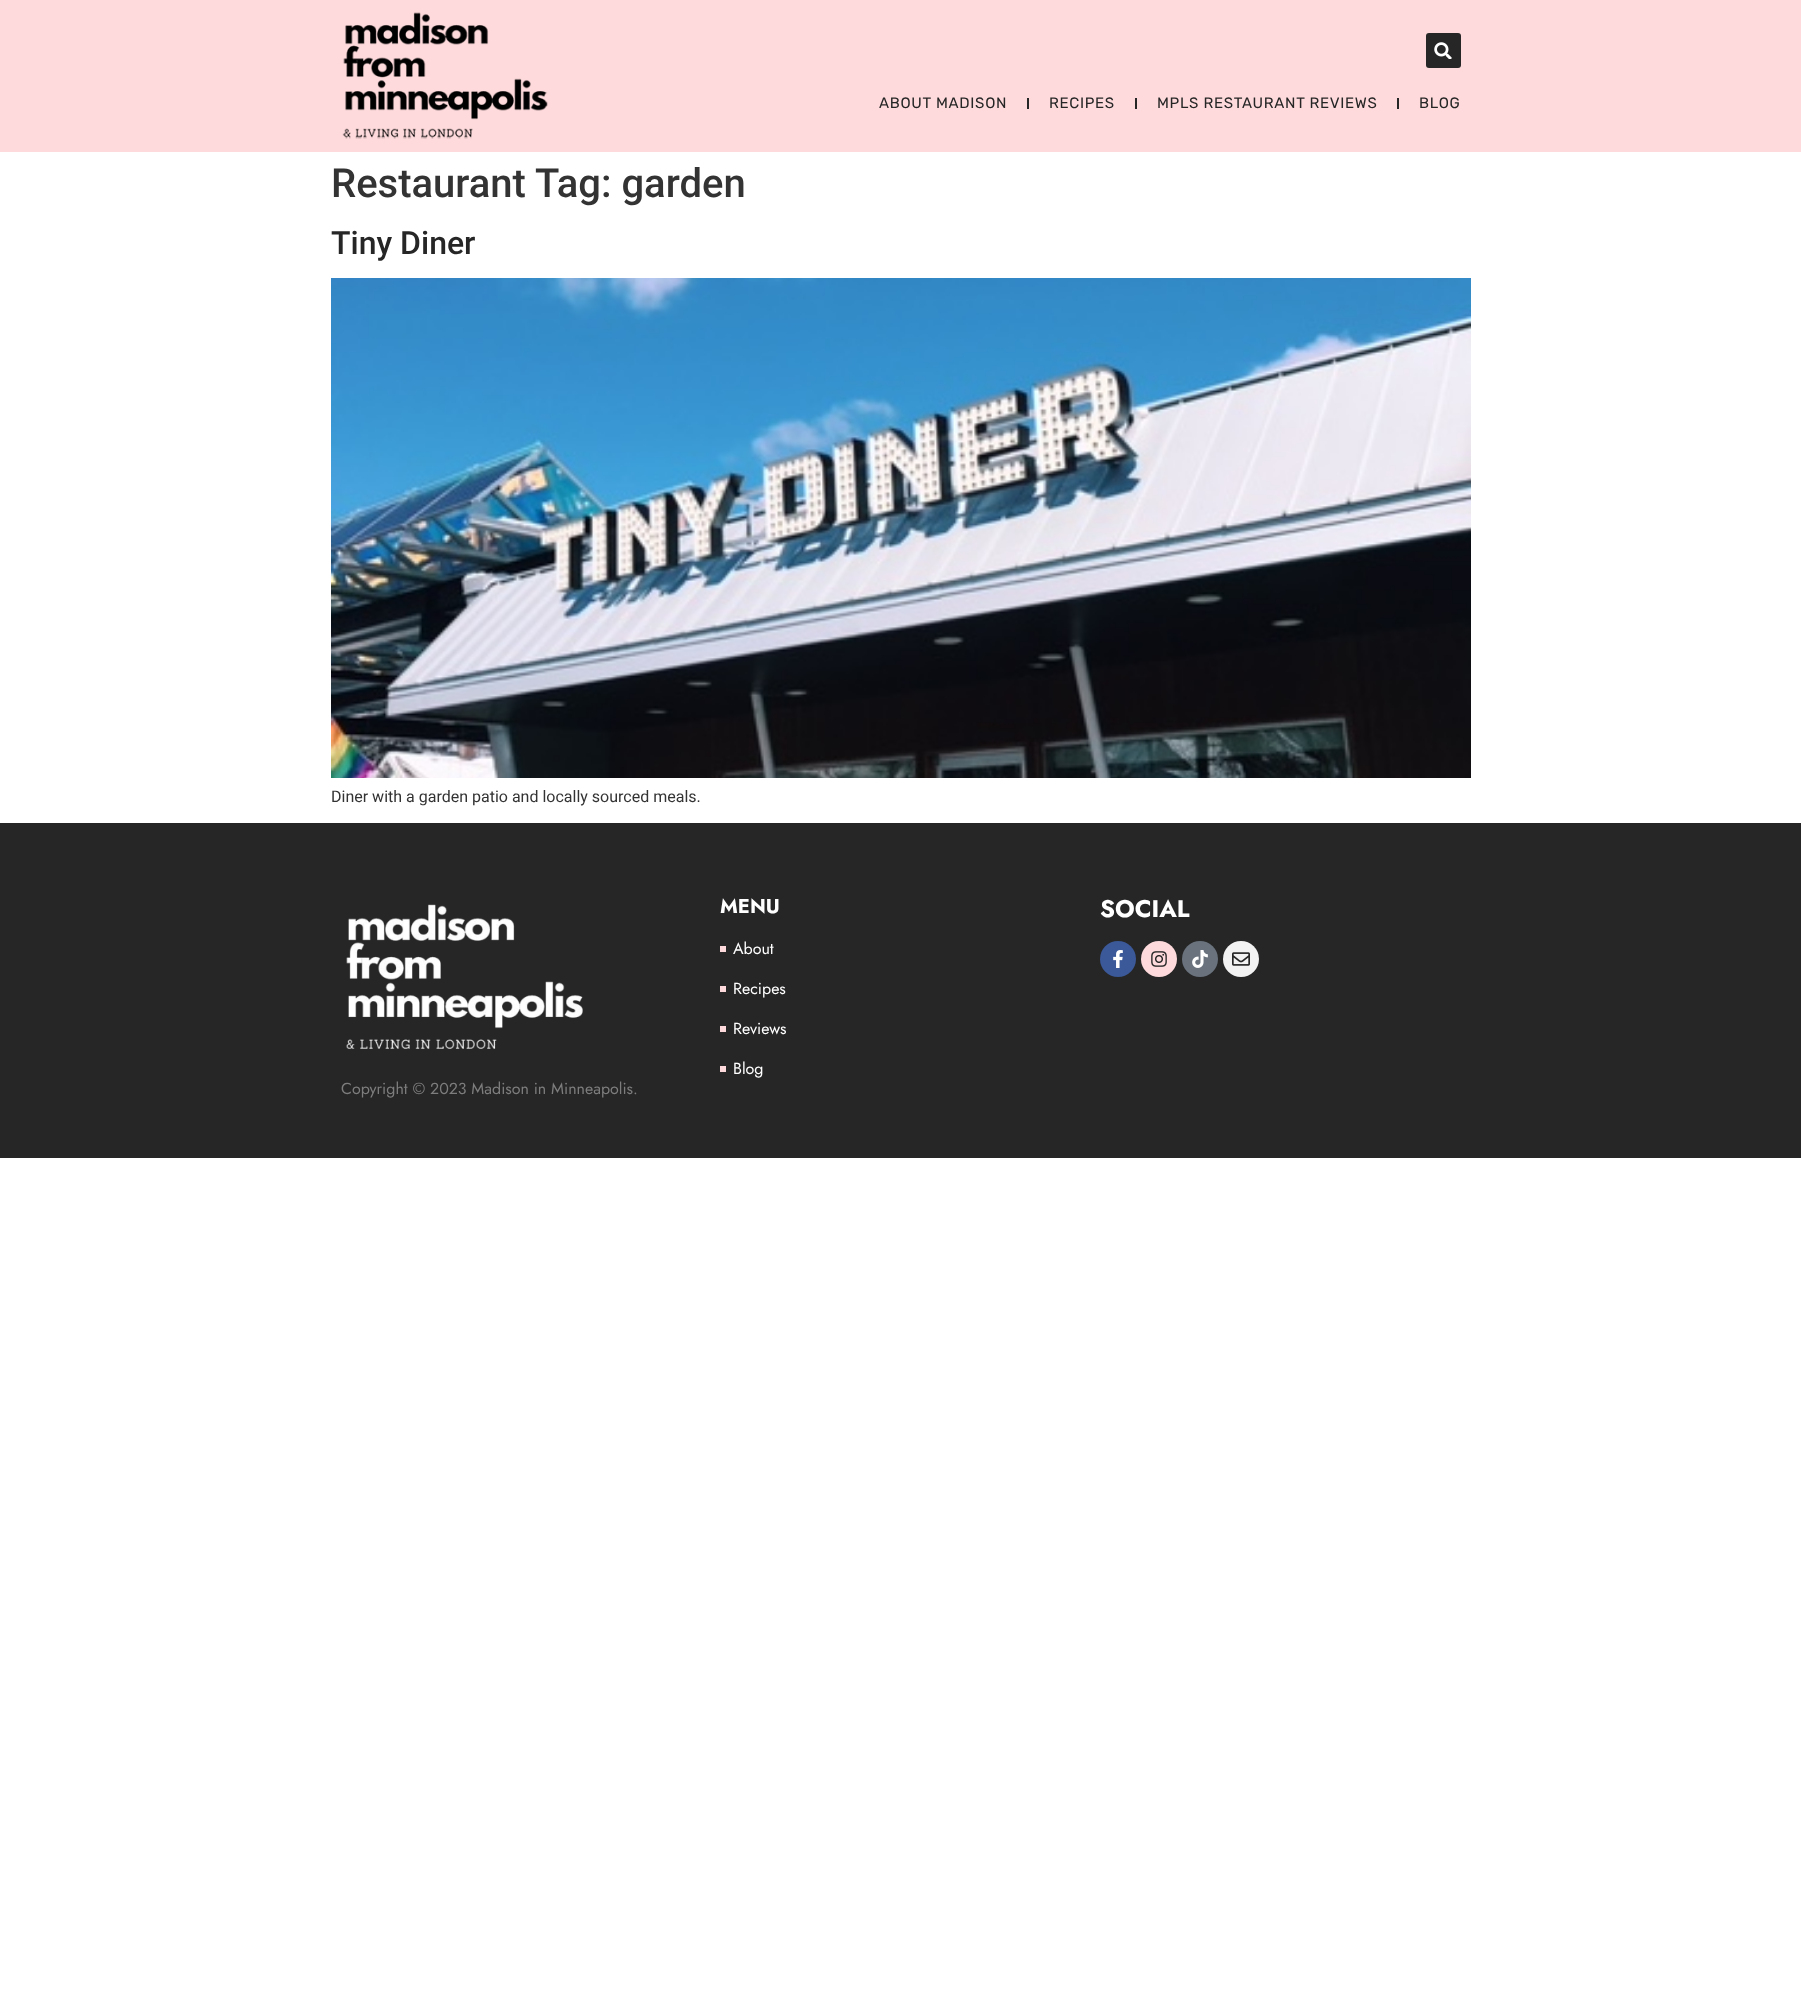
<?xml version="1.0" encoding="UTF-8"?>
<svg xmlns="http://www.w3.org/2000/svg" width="1801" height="1995">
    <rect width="100%" height="100%" fill="#FFFFFF"/>
    <rect x="0" y="0" width="1801" height="152" fill="#FEDADC"/>
    <image x="342" y="12" width="206" height="127" href="img_01.png"/>
    <rect x="1426" y="33" width="35" height="35" rx="3" fill="#262626"/>
    <image x="1434" y="42" width="18" height="17" href="img_02.png"/>
    <text x="879" y="108" font-family="Rubik" font-size="15" letter-spacing="0.7" fill="#262626">ABOUT MADISON</text>
    <rect x="1027" y="98" width="2" height="11" fill="#262626"/>
    <text x="1049" y="108" font-family="Rubik" font-size="15" letter-spacing="0.7" fill="#262626">RECIPES</text>
    <rect x="1135" y="98" width="2" height="11" fill="#262626"/>
    <text x="1157" y="108" font-family="Rubik" font-size="15" letter-spacing="0.7" fill="#262626">MPLS RESTAURANT REVIEWS</text>
    <rect x="1397" y="98" width="2" height="11" fill="#262626"/>
    <text x="1419" y="108" font-family="Rubik" font-size="15" letter-spacing="0.7" fill="#262626">BLOG</text>
    <text x="331" y="197" font-family="Roboto" font-size="40" font-weight="500" fill="#333333">Restaurant Tag: garden</text>
    <text x="331" y="254" font-family="Roboto" font-size="32" font-weight="500" fill="#262626">Tiny Diner</text>
    <image x="331" y="278" width="1140" height="500" href="img_03.png"/>
    <text x="331" y="802" font-family="Roboto" font-size="16" fill="#333333">Diner with a garden patio and locally sourced meals.</text>
    <rect x="0" y="823" width="1801" height="335" fill="#262626"/>
    <text x="720" y="913" font-family="Jost" font-size="20" font-weight="700" fill="#FFFFFF">MENU</text>
    <rect x="720" y="946" width="6" height="6" fill="#FEDADC"/>
    <text x="733" y="954" font-family="Jost" font-size="16" fill="#FFFFFF">About</text>
    <rect x="720" y="986" width="6" height="6" fill="#FEDADC"/>
    <text x="733" y="994" font-family="Jost" font-size="16" fill="#FFFFFF">Recipes</text>
    <rect x="720" y="1026" width="6" height="6" fill="#FEDADC"/>
    <text x="733" y="1034" font-family="Jost" font-size="16" fill="#FFFFFF">Reviews</text>
    <rect x="720" y="1066" width="6" height="6" fill="#FEDADC"/>
    <text x="733" y="1074" font-family="Jost" font-size="16" fill="#FFFFFF">Blog</text>
    <text x="1100" y="917" font-family="Jost" font-size="24" font-weight="700" fill="#FFFFFF">SOCIAL</text>
    <circle cx="1118" cy="959" r="18" fill="#3B5998"/>
    <image x="1113" y="950" width="10" height="18" href="img_04.png"/>
    <circle cx="1159" cy="959" r="18" fill="#FEDADC"/>
    <image x="1151" y="951" width="16" height="16" href="img_05.png"/>
    <circle cx="1200" cy="959" r="18" fill="#69727D"/>
    <image x="1192" y="950" width="16" height="18" href="img_06.png"/>
    <circle cx="1241" cy="959" r="18" fill="#F2F2F2"/>
    <image x="1232" y="952" width="18" height="14" href="img_07.png"/>
    <image x="346" y="904" width="237" height="145" href="img_08.png"/>
    <text x="341" y="1094" font-family="Jost" font-size="16" fill="#7D7D7D">Copyright © 2023 Madison in Minneapolis.</text>
</svg>
